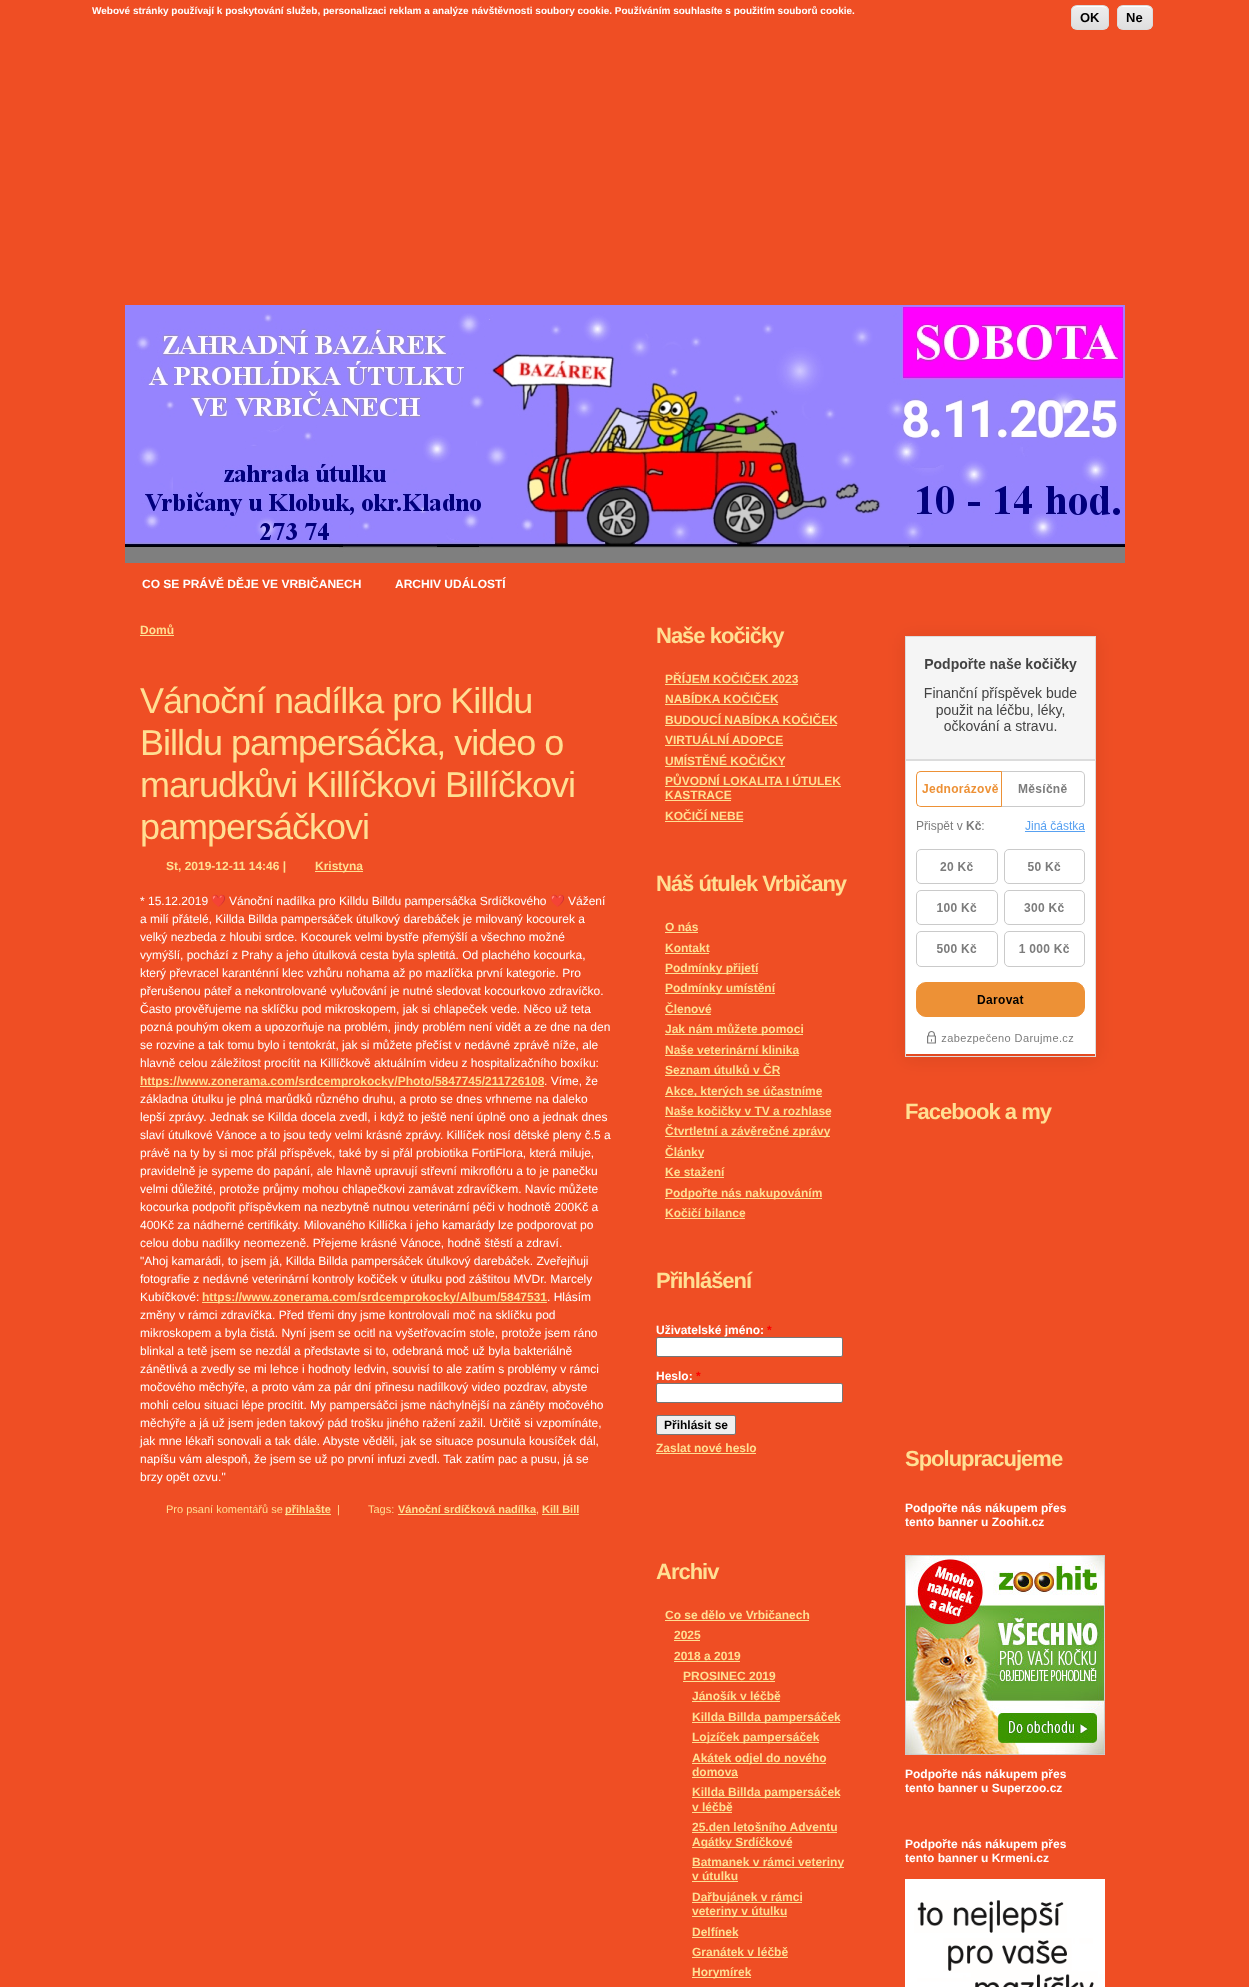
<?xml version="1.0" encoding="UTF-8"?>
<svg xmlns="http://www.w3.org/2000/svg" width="1249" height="1987">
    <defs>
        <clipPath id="clip1"><rect x="1071" y="5" width="38" height="25" rx="6"/></clipPath>
        <linearGradient id="g1" gradientUnits="userSpaceOnUse" x1="1072" y1="6" x2="1072" y2="29"><stop offset="0.05" stop-color="#EDEDED"/><stop offset="1" stop-color="#DFDFDF"/></linearGradient>
        <clipPath id="clip2"><rect x="1117" y="5" width="36" height="25" rx="6"/></clipPath>
        <linearGradient id="g2" gradientUnits="userSpaceOnUse" x1="1118" y1="6" x2="1118" y2="29"><stop offset="0.05" stop-color="#EDEDED"/><stop offset="1" stop-color="#DFDFDF"/></linearGradient>
        <filter id="blur1" x="-50%" y="-200%" width="200%" height="500%"><feGaussianBlur stdDeviation="9"/></filter>
    </defs>
    <rect width="100%" height="100%" fill="#EF4E24"/>
    <text x="92" y="14" font-family="Liberation Sans" font-size="10" font-weight="700" fill="#FFFFFF">Webové stránky používají k poskytování služeb, personalizaci reklam a analýze návštěvnosti soubory cookie. Používáním souhlasíte s použitím souborů cookie.</text>
    <g clip-path="url(#clip1)">
        <rect x="1071" y="6" width="38" height="23" fill="url(#g1)"/>
    </g>
    <path d="M 1077 7 H 1099 C 1106.5 7 1108 8 1108 12.5 C 1108 6 1104.5 6 1098.5 6 H 1081.5 C 1074.5 6 1072 6 1072 13 C 1072 10 1073 7 1077 7 Z M 1108 24 V 25 Z" fill="#FFFFFF" fill-rule="evenodd"/>
    <rect x="1071.5" y="5.5" width="37" height="24" rx="5.5" fill="none" stroke="#DCDCDC"/>
    <text x="1080" y="22" font-family="Liberation Sans" font-size="13" font-weight="700" fill="#000000">OK</text>
    <g clip-path="url(#clip2)">
        <rect x="1117" y="6" width="36" height="23" fill="url(#g2)"/>
    </g>
    <path d="M 1123 6 C 1120.5 6 1118 8 1118 10.5 C 1118.5 9 1119.5 7.5 1121 7 H 1143 C 1150.5 7 1152 8.5 1152 13 C 1152 9.5 1151 6 1147 6 Z M 1152 24 V 25 Z M 1118.5 25.5 L 1118 21 C 1118 22.5 1118 24.5 1118.5 25.5 Z" fill="#FFFFFF" fill-rule="evenodd"/>
    <rect x="1117.5" y="5.5" width="35" height="24" rx="5.5" fill="none" stroke="#DCDCDC"/>
    <text x="1126" y="22" font-family="Liberation Sans" font-size="13" font-weight="700" fill="#000000">Ne</text>
    <image x="125" y="305" width="1000" height="258" href="img_01.png"/>
    <text x="142" y="588" font-family="Liberation Sans" font-size="12" font-weight="700" fill="#FFFFFF">CO SE PRÁVĚ DĚJE VE VRBIČANECH</text>
    <text x="395" y="588" font-family="Liberation Sans" font-size="12" font-weight="700" fill="#FFFFFF">ARCHIV UDÁLOSTÍ</text>
    <text x="140" y="634" font-family="Liberation Sans" font-size="12" font-weight="700" fill="#FFDF93">Domů</text>
    <rect x="140" y="635" width="34" height="1" fill="#FFDF93"/>
    <text font-family="Liberation Sans" font-size="36" letter-spacing="-1" fill="#FFDF93">
        <tspan x="140" y="713">Vánoční nadílka pro Killdu</tspan>
        <tspan x="140" y="755">Billdu pampersáčka, video o</tspan>
        <tspan x="140" y="797">marudkůvi Killíčkovi Billíčkovi</tspan>
        <tspan x="140" y="839">pampersáčkovi</tspan>
    </text>
    <text x="166" y="870" font-family="Liberation Sans" font-size="12" font-weight="700" fill="#FFDF93">St, 2019-12-11 14:46 |</text>
    <rect x="315" y="871" width="48" height="1" fill="#FFDF93"/>
    <text x="315" y="870" font-family="Liberation Sans" font-size="12" font-weight="700" fill="#FFDF93">Kristyna</text>
    <text x="140" y="905" font-family="Liberation Sans" font-size="12" fill="#FFFFFF">* 15.12.2019</text>
    <text x="211" y="905" font-family="Noto Color Emoji" font-size="12" fill="#FFFFFF">❤️</text>
    <text x="229" y="905" font-family="Liberation Sans" font-size="12" fill="#FFFFFF">Vánoční nadílka pro Killdu Billdu pampersáčka Srdíčkového</text>
    <text x="550" y="905" font-family="Noto Color Emoji" font-size="12" fill="#FFFFFF">❤️</text>
    <text x="568" y="905" font-family="Liberation Sans" font-size="12" fill="#FFFFFF">Vážení</text>
    <text font-family="Liberation Sans" font-size="12" fill="#FFFFFF">
        <tspan x="140" y="923">a milí přátelé, Killda Billda pampersáček útulkový darebáček je milovaný kocourek a</tspan>
        <tspan x="140" y="941">velký nezbeda z hloubi srdce. Kocourek velmi bystře přemýšlí a všechno možné</tspan>
        <tspan x="140" y="959">vymýšlí, pochází z Prahy a jeho útulková cesta byla spletitá. Od plachého kocourka,</tspan>
        <tspan x="140" y="977">který převracel karanténní klec vzhůru nohama až po mazlíčka první kategorie. Pro</tspan>
        <tspan x="140" y="995">přerušenou páteř a nekontrolované vylučování je nutné sledovat kocourkovo zdravíčko.</tspan>
        <tspan x="140" y="1013">Často prověřujeme na sklíčku pod mikroskopem, jak si chlapeček vede. Něco už teta</tspan>
        <tspan x="140" y="1031">pozná pouhým okem a upozorňuje na problém, jindy problém není vidět a ze dne na den</tspan>
        <tspan x="140" y="1049">se rozvine a tak tomu bylo i tentokrát, jak si můžete přečíst v nedávné zprávě níže, ale</tspan>
        <tspan x="140" y="1067">hlavně celou záležitost procítit na Killíčkově aktuálním videu z hospitalizačního boxíku:</tspan>
    </text>
    <rect x="140" y="1086" width="404" height="1" fill="#FFDF93"/>
    <text x="140" y="1085" font-family="Liberation Sans" font-size="12" font-weight="700" fill="#FFDF93">https://www.zonerama.com/srdcemprokocky/Photo/5847745/211726108</text>
    <text x="544" y="1085" font-family="Liberation Sans" font-size="12" fill="#FFFFFF">. Víme, že</text>
    <text font-family="Liberation Sans" font-size="12" fill="#FFFFFF">
        <tspan x="140" y="1103">základna útulku je plná marůdků různého druhu, a proto se dnes vrhneme na daleko</tspan>
        <tspan x="140" y="1121">lepší zprávy. Jednak se Killda docela zvedl, i když to ještě není úplně ono a jednak dnes</tspan>
        <tspan x="140" y="1139">slaví útulkové Vánoce a to jsou tedy velmi krásné zprávy. Killíček nosí dětské pleny č.5 a</tspan>
        <tspan x="140" y="1157">právě na ty by si moc přál příspěvek, také by si přál probiotika FortiFlora, která miluje,</tspan>
        <tspan x="140" y="1175">pravidelně je sypeme do papání, ale hlavně upravují střevní mikroflóru a to je panečku</tspan>
        <tspan x="140" y="1193">velmi důležité, protože průjmy mohou chlapečkovi zamávat zdravíčkem. Navíc můžete</tspan>
        <tspan x="140" y="1211">kocourka podpořit příspěvkem na nezbytně nutnou veterinární péči v hodnotě 200Kč a</tspan>
        <tspan x="140" y="1229">400Kč za nádherné certifikáty. Milovaného Killíčka i jeho kamarády lze podporovat po</tspan>
        <tspan x="140" y="1247">celou dobu nadílky neomezeně. Přejeme krásné Vánoce, hodně štěstí a zdraví.</tspan>
        <tspan x="140" y="1265">"Ahoj kamarádi, to jsem já, Killda Billda pampersáček útulkový darebáček. Zveřejňuji</tspan>
        <tspan x="140" y="1283">fotografie z nedávné veterinární kontroly kočiček v útulku pod záštitou MVDr. Marcely</tspan>
        <tspan x="140" y="1301">Kubíčkové:</tspan>
    </text>
    <rect x="202" y="1302" width="345" height="1" fill="#FFDF93"/>
    <text x="202" y="1301" font-family="Liberation Sans" font-size="12" font-weight="700" fill="#FFDF93">https://www.zonerama.com/srdcemprokocky/Album/5847531</text>
    <text x="547" y="1301" font-family="Liberation Sans" font-size="12" fill="#FFFFFF">. Hlásím</text>
    <text font-family="Liberation Sans" font-size="12" fill="#FFFFFF">
        <tspan x="140" y="1319">změny v rámci zdravíčka. Před třemi dny jsme kontrolovali moč na sklíčku pod</tspan>
        <tspan x="140" y="1337">mikroskopem a byla čistá. Nyní jsem se ocitl na vyšetřovacím stole, protože jsem ráno</tspan>
        <tspan x="140" y="1355">blinkal a tetě jsem se nezdál a představte si to, odebraná moč už byla bakteriálně</tspan>
        <tspan x="140" y="1373">zánětlivá a zvedly se mi lehce i hodnoty ledvin, souvisí to ale zatím s problémy v rámci</tspan>
        <tspan x="140" y="1391">močového měchýře, a proto vám za pár dní přinesu nadílkový video pozdrav, abyste</tspan>
        <tspan x="140" y="1409">mohli celou situaci lépe procítit. My pampersáčci jsme náchylnější na záněty močového</tspan>
        <tspan x="140" y="1427">měchýře a já už jsem jeden takový pád trošku jiného ražení zažil. Určitě si vzpomínáte,</tspan>
        <tspan x="140" y="1445">jak mne lékaři sonovali a tak dále. Abyste věděli, jak se situace posunula kousíček dál,</tspan>
        <tspan x="140" y="1463">napíšu vám alespoň, že jsem se už po první infuzi zvedl. Tak zatím pac a pusu, já se</tspan>
        <tspan x="140" y="1481">brzy opět ozvu."</tspan>
    </text>
    <text x="166" y="1513" font-family="Liberation Sans" font-size="11" fill="#FFDF93">Pro psaní komentářů se</text>
    <rect x="285" y="1514" width="46" height="1" fill="#FFDF93"/>
    <text x="285" y="1513" font-family="Liberation Sans" font-size="11" font-weight="700" fill="#FFDF93">přihlašte</text>
    <text x="337" y="1513" font-family="Liberation Sans" font-size="11" fill="#FFDF93">|</text>
    <text x="368" y="1513" font-family="Liberation Sans" font-size="11" fill="#FFDF93">Tags:</text>
    <text x="398" y="1513" font-family="Liberation Sans" font-size="11" font-weight="700" fill="#FFDF93">Vánoční srdíčková nadílka</text>
    <rect x="398" y="1514" width="138" height="1" fill="#FFDF93"/>
    <text x="536" y="1513" font-family="Liberation Sans" font-size="11" fill="#FFDF93">,</text>
    <text x="542" y="1513" font-family="Liberation Sans" font-size="11" font-weight="700" fill="#FFDF93">Kill Bill</text>
    <rect x="542" y="1514" width="37" height="1" fill="#FFDF93"/>
    <text x="656" y="643" font-family="Liberation Sans" font-size="22" font-weight="700" letter-spacing="-1" fill="#FFDF93">Naše kočičky</text>
    <text x="665" y="683" font-family="Liberation Sans" font-size="12" font-weight="700" fill="#FFDF93">PŘÍJEM KOČIČEK 2023</text>
    <rect x="665" y="684" width="133" height="1" fill="#FFDF93"/>
    <text x="665" y="703" font-family="Liberation Sans" font-size="12" font-weight="700" fill="#FFDF93">NABÍDKA KOČIČEK</text>
    <rect x="665" y="704" width="113" height="1" fill="#FFDF93"/>
    <text x="665" y="724" font-family="Liberation Sans" font-size="12" font-weight="700" fill="#FFDF93">BUDOUCÍ NABÍDKA KOČIČEK</text>
    <rect x="665" y="725" width="172" height="1" fill="#FFDF93"/>
    <text x="665" y="744" font-family="Liberation Sans" font-size="12" font-weight="700" fill="#FFDF93">VIRTUÁLNÍ ADOPCE</text>
    <rect x="665" y="745" width="118" height="1" fill="#FFDF93"/>
    <text x="665" y="765" font-family="Liberation Sans" font-size="12" font-weight="700" fill="#FFDF93">UMÍSTĚNÉ KOČIČKY</text>
    <rect x="665" y="766" width="120" height="1" fill="#FFDF93"/>
    <text x="665" y="785" font-family="Liberation Sans" font-size="12" font-weight="700" fill="#FFDF93">PŮVODNÍ LOKALITA I ÚTULEK</text>
    <rect x="665" y="786" width="176" height="1" fill="#FFDF93"/>
    <text x="665" y="799" font-family="Liberation Sans" font-size="12" font-weight="700" fill="#FFDF93">KASTRACE</text>
    <rect x="665" y="800" width="66" height="1" fill="#FFDF93"/>
    <text x="665" y="820" font-family="Liberation Sans" font-size="12" font-weight="700" fill="#FFDF93">KOČIČÍ NEBE</text>
    <rect x="665" y="821" width="78" height="1" fill="#FFDF93"/>
    <text x="656" y="891" font-family="Liberation Sans" font-size="22" font-weight="700" letter-spacing="-1" fill="#FFDF93">Náš útulek Vrbičany</text>
    <text x="665" y="931" font-family="Liberation Sans" font-size="12" font-weight="700" fill="#FFDF93">O nás</text>
    <rect x="665" y="932" width="33" height="1" fill="#FFDF93"/>
    <text x="665" y="952" font-family="Liberation Sans" font-size="12" font-weight="700" fill="#FFDF93">Kontakt</text>
    <rect x="665" y="953" width="44" height="1" fill="#FFDF93"/>
    <rect x="665" y="973" width="93" height="1" fill="#FFDF93"/>
    <text x="665" y="972" font-family="Liberation Sans" font-size="12" font-weight="700" fill="#FFDF93">Podmínky přijetí</text>
    <rect x="665" y="993" width="110" height="1" fill="#FFDF93"/>
    <text font-family="Liberation Sans" font-size="12" font-weight="700" fill="#FFDF93">
        <tspan x="665" y="992">Podmínky umístění</tspan>
        <tspan x="665" y="1013">Členové</tspan>
    </text>
    <rect x="665" y="1014" width="46" height="1" fill="#FFDF93"/>
    <rect x="665" y="1034" width="138" height="1" fill="#FFDF93"/>
    <text font-family="Liberation Sans" font-size="12" font-weight="700" fill="#FFDF93">
        <tspan x="665" y="1033">Jak nám můžete pomoci</tspan>
        <tspan x="665" y="1054">Naše veterinární klinika</tspan>
    </text>
    <rect x="665" y="1055" width="134" height="1" fill="#FFDF93"/>
    <text x="665" y="1074" font-family="Liberation Sans" font-size="12" font-weight="700" fill="#FFDF93">Seznam útulků v ČR</text>
    <rect x="665" y="1075" width="115" height="1" fill="#FFDF93"/>
    <rect x="665" y="1096" width="157" height="1" fill="#FFDF93"/>
    <text x="665" y="1095" font-family="Liberation Sans" font-size="12" font-weight="700" fill="#FFDF93">Akce, kterých se účastníme</text>
    <rect x="665" y="1116" width="166" height="1" fill="#FFDF93"/>
    <text x="665" y="1115" font-family="Liberation Sans" font-size="12" font-weight="700" fill="#FFDF93">Naše kočičky v TV a rozhlase</text>
    <rect x="665" y="1136" width="165" height="1" fill="#FFDF93"/>
    <text x="665" y="1135" font-family="Liberation Sans" font-size="12" font-weight="700" fill="#FFDF93">Čtvrtletní a závěrečné zprávy</text>
    <rect x="665" y="1157" width="39" height="1" fill="#FFDF93"/>
    <text font-family="Liberation Sans" font-size="12" font-weight="700" fill="#FFDF93">
        <tspan x="665" y="1156">Články</tspan>
        <tspan x="665" y="1176">Ke stažení</tspan>
    </text>
    <rect x="665" y="1177" width="59" height="1" fill="#FFDF93"/>
    <rect x="665" y="1198" width="157" height="1" fill="#FFDF93"/>
    <text font-family="Liberation Sans" font-size="12" font-weight="700" fill="#FFDF93">
        <tspan x="665" y="1197">Podpořte nás nakupováním</tspan>
        <tspan x="665" y="1217">Kočičí bilance</tspan>
    </text>
    <rect x="665" y="1218" width="80" height="1" fill="#FFDF93"/>
    <text x="656" y="1288" font-family="Liberation Sans" font-size="22" font-weight="700" letter-spacing="-1" fill="#FFDF93">Přihlášení</text>
    <text x="656" y="1334" font-family="Liberation Sans" font-size="12" font-weight="700" fill="#FFFFFF">Uživatelské jméno:</text>
    <text x="767" y="1334" font-family="Liberation Sans" font-size="12" font-weight="700" fill="#FF0000">*</text>
    <rect x="656.5" y="1337.5" width="186" height="19" rx="1.5" fill="#FFFFFF" stroke="#767676"/>
    <text x="656" y="1380" font-family="Liberation Sans" font-size="12" font-weight="700" fill="#FFFFFF">Heslo:</text>
    <text x="696" y="1380" font-family="Liberation Sans" font-size="12" font-weight="700" fill="#FF0000">*</text>
    <rect x="656.5" y="1383.5" width="186" height="19" rx="1.5" fill="#FFFFFF" stroke="#767676"/>
    <rect x="656.5" y="1415.5" width="79" height="19" rx="1.5" fill="#EFEFEF" stroke="#767676"/>
    <text x="664" y="1429" font-family="Liberation Sans" font-size="12" font-weight="700" fill="#000000">Přihlásit se</text>
    <text x="656" y="1452" font-family="Liberation Sans" font-size="12" font-weight="700" fill="#FFDF93">Zaslat nové heslo</text>
    <rect x="656" y="1453" width="100" height="1" fill="#FFDF93"/>
    <text x="656" y="1579" font-family="Liberation Sans" font-size="22" font-weight="700" letter-spacing="-1" fill="#FFDF93">Archiv</text>
    <text x="665" y="1619" font-family="Liberation Sans" font-size="12" font-weight="700" fill="#FFDF93">Co se dělo ve Vrbičanech</text>
    <rect x="665" y="1620" width="144" height="1" fill="#FFDF93"/>
    <text x="674" y="1639" font-family="Liberation Sans" font-size="12" font-weight="700" fill="#FFDF93">2025</text>
    <rect x="674" y="1640" width="26" height="1" fill="#FFDF93"/>
    <text x="674" y="1660" font-family="Liberation Sans" font-size="12" font-weight="700" fill="#FFDF93">2018 a 2019</text>
    <rect x="674" y="1661" width="66" height="1" fill="#FFDF93"/>
    <text x="683" y="1680" font-family="Liberation Sans" font-size="12" font-weight="700" fill="#FFDF93">PROSINEC 2019</text>
    <rect x="683" y="1681" width="92" height="1" fill="#FFDF93"/>
    <text x="692" y="1700" font-family="Liberation Sans" font-size="12" font-weight="700" fill="#FFDF93">Jánošík v léčbě</text>
    <rect x="692" y="1701" width="88" height="1" fill="#FFDF93"/>
    <rect x="692" y="1722" width="148" height="1" fill="#FFDF93"/>
    <text x="692" y="1721" font-family="Liberation Sans" font-size="12" font-weight="700" fill="#FFDF93">Killda Billda pampersáček</text>
    <rect x="692" y="1742" width="127" height="1" fill="#FFDF93"/>
    <text x="692" y="1741" font-family="Liberation Sans" font-size="12" font-weight="700" fill="#FFDF93">Lojzíček pampersáček</text>
    <rect x="692" y="1763" width="134" height="1" fill="#FFDF93"/>
    <text font-family="Liberation Sans" font-size="12" font-weight="700" fill="#FFDF93">
        <tspan x="692" y="1762">Akátek odjel do nového</tspan>
        <tspan x="692" y="1776">domova</tspan>
    </text>
    <rect x="692" y="1777" width="46" height="1" fill="#FFDF93"/>
    <rect x="692" y="1797" width="148" height="1" fill="#FFDF93"/>
    <text font-family="Liberation Sans" font-size="12" font-weight="700" fill="#FFDF93">
        <tspan x="692" y="1796">Killda Billda pampersáček</tspan>
        <tspan x="692" y="1811">v léčbě</tspan>
    </text>
    <rect x="692" y="1812" width="40" height="1" fill="#FFDF93"/>
    <text x="692" y="1831" font-family="Liberation Sans" font-size="12" font-weight="700" fill="#FFDF93">25.den letošního Adventu</text>
    <rect x="692" y="1832" width="145" height="1" fill="#FFDF93"/>
    <rect x="692" y="1847" width="100" height="1" fill="#FFDF93"/>
    <text x="692" y="1846" font-family="Liberation Sans" font-size="12" font-weight="700" fill="#FFDF93">Agátky Srdíčkové</text>
    <rect x="692" y="1867" width="152" height="1" fill="#FFDF93"/>
    <text font-family="Liberation Sans" font-size="12" font-weight="700" fill="#FFDF93">
        <tspan x="692" y="1866">Batmanek v rámci veteriny</tspan>
        <tspan x="692" y="1880">v útulku</tspan>
    </text>
    <rect x="692" y="1881" width="46" height="1" fill="#FFDF93"/>
    <rect x="692" y="1902" width="110" height="1" fill="#FFDF93"/>
    <text x="692" y="1901" font-family="Liberation Sans" font-size="12" font-weight="700" fill="#FFDF93">Dařbujánek v rámci</text>
    <rect x="692" y="1916" width="95" height="1" fill="#FFDF93"/>
    <text font-family="Liberation Sans" font-size="12" font-weight="700" fill="#FFDF93">
        <tspan x="692" y="1915">veteriny v útulku</tspan>
        <tspan x="692" y="1936">Delfínek</tspan>
    </text>
    <rect x="692" y="1937" width="46" height="1" fill="#FFDF93"/>
    <text x="692" y="1956" font-family="Liberation Sans" font-size="12" font-weight="700" fill="#FFDF93">Granátek v léčbě</text>
    <rect x="692" y="1957" width="96" height="1" fill="#FFDF93"/>
    <rect x="692" y="1977" width="59" height="1" fill="#FFDF93"/>
    <text x="692" y="1976" font-family="Liberation Sans" font-size="12" font-weight="700" fill="#FFDF93">Horymírek</text>
    <rect x="905" y="638" width="191" height="421" fill="#000000" fill-opacity="0.09" filter="url(#blur1)"/>
    <rect x="905.5" y="636.5" width="190" height="420" fill="none" stroke="#DCDCDC"/>
    <image x="906" y="637" width="189" height="417" href="img_02.png"/>
    <text x="905" y="1119" font-family="Liberation Sans" font-size="22" font-weight="700" letter-spacing="-1" fill="#FFDF93">Facebook a my</text>
    <text x="905" y="1466" font-family="Liberation Sans" font-size="22" font-weight="700" letter-spacing="-1" fill="#FFDF93">Spolupracujeme</text>
    <text font-family="Liberation Sans" font-size="12" font-weight="700" fill="#FFFFFF">
        <tspan x="905" y="1512">Podpořte nás nákupem přes</tspan>
        <tspan x="905" y="1526">tento banner u Zoohit.cz</tspan>
    </text>
    <image x="905" y="1555" width="200" height="200" href="img_03.png"/>
    <text font-family="Liberation Sans" font-size="12" font-weight="700" fill="#FFFFFF">
        <tspan x="905" y="1778">Podpořte nás nákupem přes</tspan>
        <tspan x="905" y="1792">tento banner u Superzoo.cz</tspan>
    </text>
    <text font-family="Liberation Sans" font-size="12" font-weight="700" fill="#FFFFFF">
        <tspan x="905" y="1848">Podpořte nás nákupem přes</tspan>
        <tspan x="905" y="1862">tento banner u Krmeni.cz</tspan>
    </text>
    <image x="905" y="1879" width="200" height="108" href="img_04.png"/>
</svg>
